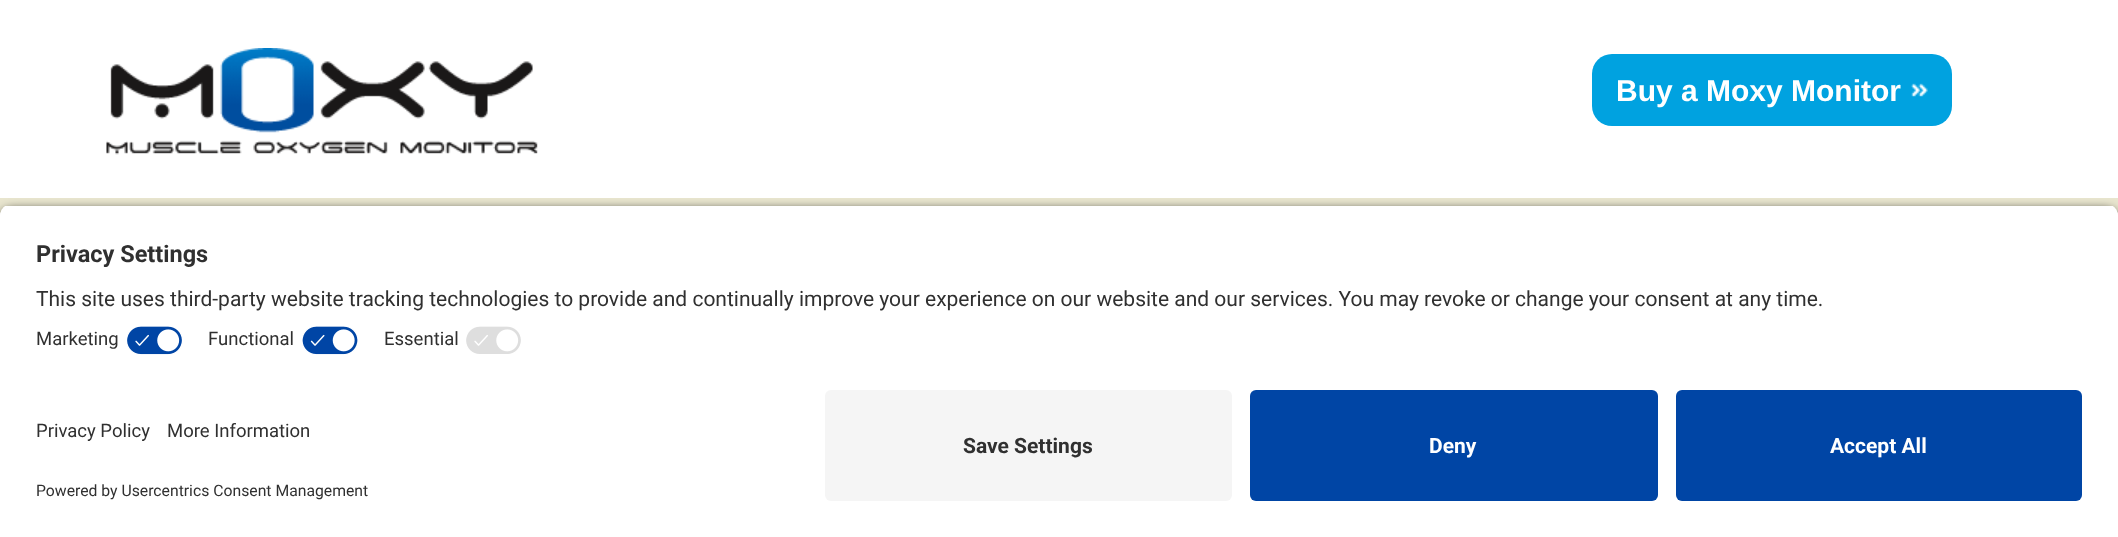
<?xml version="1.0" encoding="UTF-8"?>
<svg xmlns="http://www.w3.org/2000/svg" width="2118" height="537">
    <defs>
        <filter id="blur1" x="-50%" y="-200%" width="200%" height="500%"><feGaussianBlur stdDeviation="5"/></filter>
        <clipPath id="clip1"><path d="M 12 204 H 2106 C 2112.5 204 2118 209.5 2118 216 V 378 H 0 V 216 C 0 209.5 5.5 204 12 204 Z"/></clipPath>
    </defs>
    <rect width="100%" height="100%" fill="#FFFFFF"/>
    <image x="106" y="48" width="432" height="107" href="img_01.png"/>
    <rect x="1592" y="54" width="360" height="72" rx="20" fill="#00A2E0"/>
    <image x="1911" y="83" width="17" height="14" href="img_02.png"/>
    <text x="1616" y="101" font-family="Liberation Sans" font-size="30" font-weight="700" fill="#FFFFFF">Buy a Moxy Monitor</text>
    <rect x="0" y="198" width="2118" height="18" fill="#E8E5CE"/>
    <rect x="0" y="209" width="2118" height="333" rx="12" fill="#000000" fill-opacity="0.8" filter="url(#blur1)"/>
    <g clip-path="url(#clip1)">
        <rect x="0" y="206" width="2118" height="172" fill="#FFFFFF"/>
        <rect x="0" y="206" width="2118" height="112" fill="#FFFFFF"/>
    </g>
    <text x="36" y="262" font-family="Roboto" font-size="23.5" font-weight="700" fill="#303030">Privacy Settings</text>
    <text x="36" y="306" font-family="Roboto" font-size="21" fill="#303030">This site uses third-party website tracking technologies to provide and continually improve your experience on our website and our services. You may revoke or change your consent at any time.</text>
    <text x="36" y="345" font-family="Roboto" font-size="18.5" fill="#303030">Marketing</text>
    <image x="127" y="326" width="56" height="29" href="img_03.png"/>
    <text x="208" y="345" font-family="Roboto" font-size="18.5" fill="#303030">Functional</text>
    <image x="302" y="326" width="56" height="29" href="img_04.png"/>
    <text x="384" y="345" font-family="Roboto" font-size="18.5" fill="#303030">Essential</text>
    <image x="466" y="326" width="55" height="28" href="img_05.png"/>
    <rect x="0" y="378" width="2118" height="159" fill="#FFFFFF"/>
    <text x="36" y="437" font-family="Roboto" font-size="18.5" fill="#303030">Privacy Policy</text>
    <text x="167" y="437" font-family="Roboto" font-size="18.5" fill="#303030">More Information</text>
    <text x="36" y="496" font-family="Roboto" font-size="15.75" fill="#303030">Powered by Usercentrics Consent Management</text>
    <rect x="825" y="390" width="407" height="111" rx="6" fill="#F5F5F5"/>
    <text x="963" y="453" font-family="Roboto" font-size="21" font-weight="700" fill="#303030">Save Settings</text>
    <rect x="1250" y="390" width="408" height="111" rx="6" fill="#0045A5"/>
    <text x="1429" y="453" font-family="Roboto" font-size="21" font-weight="700" fill="#FFFFFF">Deny</text>
    <rect x="1676" y="390" width="406" height="111" rx="6" fill="#0045A5"/>
    <text x="1830" y="453" font-family="Roboto" font-size="21" font-weight="700" fill="#FFFFFF">Accept All</text>
</svg>
